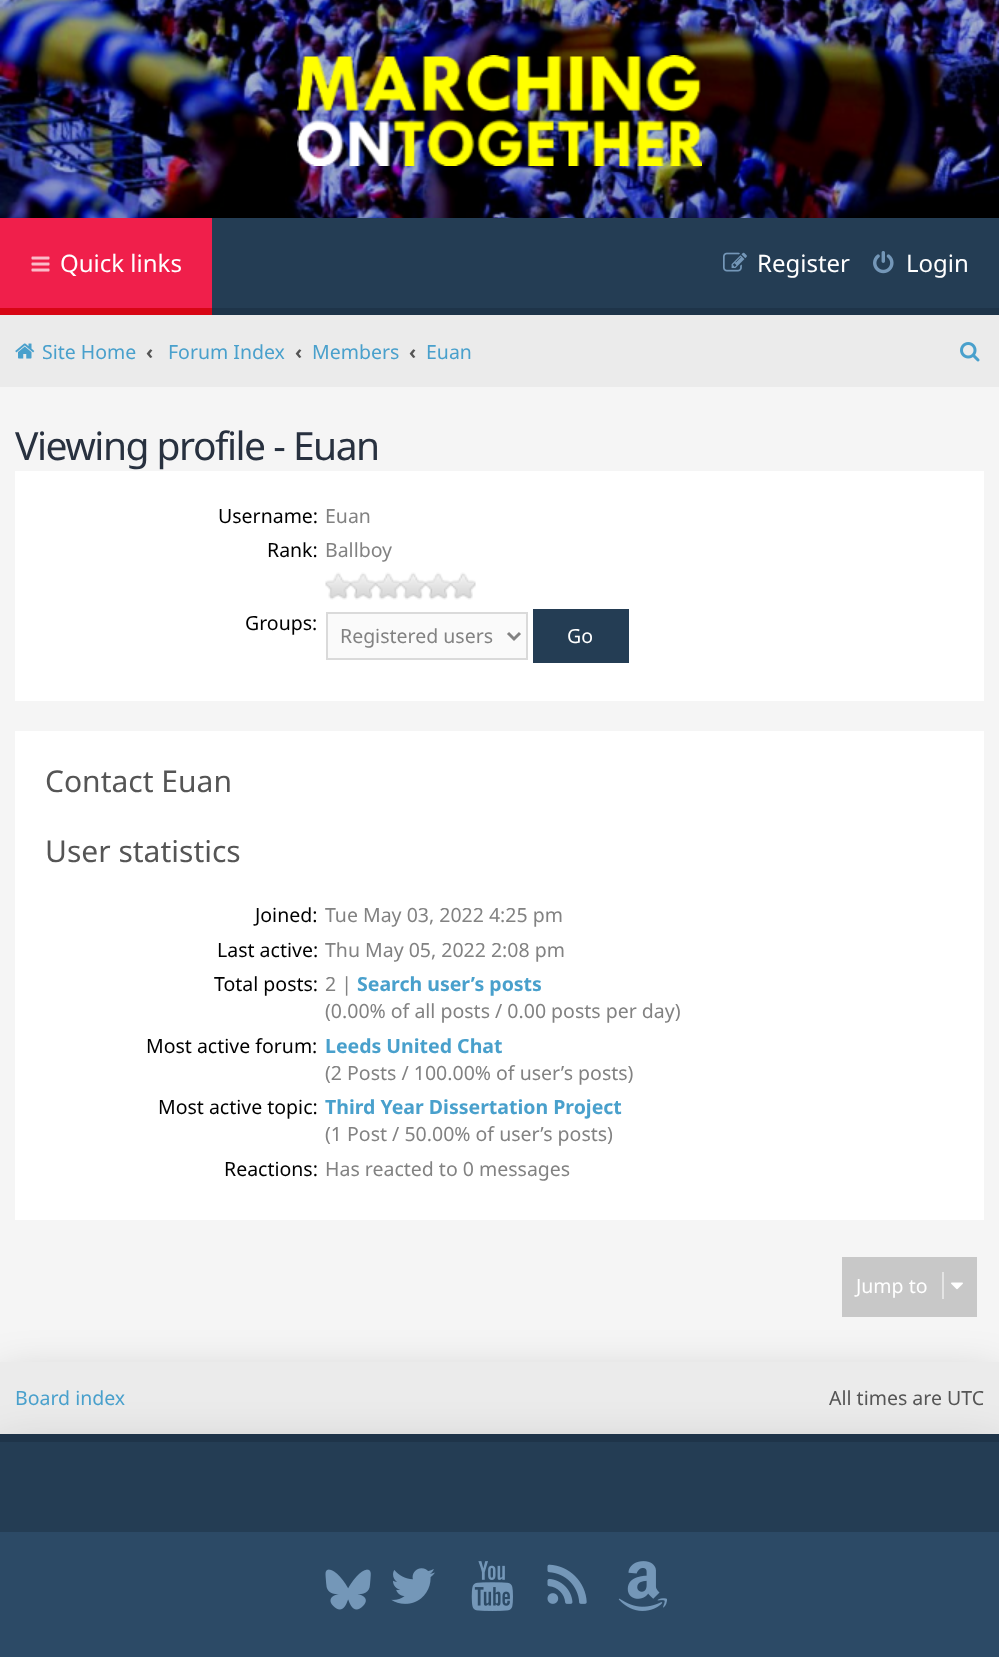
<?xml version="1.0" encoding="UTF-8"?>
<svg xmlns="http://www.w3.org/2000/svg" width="999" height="1657">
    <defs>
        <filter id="blur1" x="-50%" y="-200%" width="200%" height="500%"><feGaussianBlur stdDeviation="22.5"/></filter>
    </defs>
    <rect width="100%" height="100%" fill="#FFFFFF"/>
    <image x="0" y="0" width="999" height="218" href="img_01.png"/>
    <rect x="0" y="233" width="999" height="169" fill="#000000" fill-opacity="0.2" filter="url(#blur1)"/>
    <image x="297" y="55" width="405" height="111" href="img_02.png"/>
    <rect x="212" y="218" width="787" height="90" fill="#243D54"/>
    <rect x="212" y="308" width="787" height="7" fill="#1E3449"/>
    <rect x="0" y="218" width="212" height="90" fill="#F01F4B"/>
    <rect x="0" y="308" width="212" height="7" fill="#D70615"/>
    <image x="31" y="256" width="19" height="16" href="img_03.png"/>
    <text x="60" y="272" font-family="Noto Sans" font-size="24" fill="#FFFFFF">Quick links</text>
    <image x="723" y="252" width="24" height="20" href="img_04.png"/>
    <text x="757" y="272" font-family="Noto Sans" font-size="24" fill="#FFFFFF">Register</text>
    <image x="873" y="251" width="21" height="23" href="img_05.png"/>
    <text x="906" y="272" font-family="Noto Sans" font-size="24" fill="#FFFFFF">Login</text>
    <rect x="0" y="315" width="999" height="72" fill="#EBEBEB"/>
    <image x="15" y="343" width="20" height="16" href="img_06.png"/>
    <text x="42" y="359" font-family="Noto Sans" font-size="19.5" fill="#49A0CC">Site Home</text>
    <text x="146" y="359" font-family="Noto Sans" font-size="19.5" font-weight="700" fill="#555555">‹</text>
    <text x="168" y="359" font-family="Noto Sans" font-size="19.5" fill="#49A0CC">Forum Index</text>
    <text x="295" y="359" font-family="Noto Sans" font-size="19.5" font-weight="700" fill="#555555">‹</text>
    <text x="312" y="359" font-family="Noto Sans" font-size="19.5" fill="#49A0CC">Members</text>
    <text x="409" y="359" font-family="Noto Sans" font-size="19.5" font-weight="700" fill="#555555">‹</text>
    <text x="426" y="359" font-family="Noto Sans" font-size="19.5" fill="#49A0CC">Euan</text>
    <image x="960" y="342" width="20" height="20" href="img_07.png"/>
    <rect x="0" y="387" width="999" height="975" fill="#F5F5F5"/>
    <text x="15" y="460" font-family="Noto Sans" font-size="39" letter-spacing="-1.5" fill="#28313F">Viewing profile - Euan</text>
    <rect x="15" y="471" width="969" height="230" fill="#FFFFFF"/>
    <text x="218" y="523" font-family="Noto Sans" font-size="19.5" fill="#000000">Username:</text>
    <text x="325" y="523" font-family="Noto Sans" font-size="19.5" fill="#828282">Euan</text>
    <text x="267" y="557" font-family="Noto Sans" font-size="19.5" fill="#000000">Rank:</text>
    <text x="325" y="557" font-family="Noto Sans" font-size="19.5" fill="#828282">Ballboy</text>
    <image x="325" y="572" width="151" height="28" href="img_08.png"/>
    <text x="245" y="630" font-family="Noto Sans" font-size="19.5" fill="#000000">Groups:</text>
    <rect x="327" y="613" width="200" height="46" fill="#FAFAFA" stroke="#DADADA" stroke-width="2"/>
    <path d="M 508 633 L 514 639 L 520 633" fill="none" stroke="#828282" stroke-width="3"/>
    <text x="340" y="643" font-family="Noto Sans" font-size="19.5" fill="#828282">Registered users</text>
    <rect x="533" y="609" width="96" height="54" fill="#243D54"/>
    <text x="567" y="643" font-family="Noto Sans" font-size="19.5" fill="#FFFFFF">Go</text>
    <rect x="15" y="731" width="969" height="489" fill="#FFFFFF"/>
    <text x="45" y="792" font-family="Noto Sans" font-size="30" fill="#555555">Contact Euan</text>
    <text x="45" y="862" font-family="Noto Sans" font-size="30" fill="#555555">User statistics</text>
    <text x="255" y="922" font-family="Noto Sans" font-size="19.5" fill="#000000">Joined:</text>
    <text x="325" y="922" font-family="Noto Sans" font-size="19.5" fill="#828282">Tue May 03, 2022 4:25 pm</text>
    <text x="217" y="957" font-family="Noto Sans" font-size="19.5" fill="#000000">Last active:</text>
    <text x="325" y="957" font-family="Noto Sans" font-size="19.5" fill="#828282">Thu May 05, 2022 2:08 pm</text>
    <text x="214" y="991" font-family="Noto Sans" font-size="19.5" fill="#000000">Total posts:</text>
    <text x="325" y="991" font-family="Noto Sans" font-size="19.5" fill="#828282">2 |</text>
    <text x="357" y="991" font-family="Noto Sans" font-size="19.5" font-weight="700" fill="#49A0CC">Search user’s posts</text>
    <text x="325" y="1018" font-family="Noto Sans" font-size="19.5" fill="#828282">(0.00% of all posts / 0.00 posts per day)</text>
    <text x="146" y="1053" font-family="Noto Sans" font-size="19.5" fill="#000000">Most active forum:</text>
    <text x="325" y="1053" font-family="Noto Sans" font-size="19.5" font-weight="700" fill="#49A0CC">Leeds United Chat</text>
    <text x="325" y="1080" font-family="Noto Sans" font-size="19.5" fill="#828282">(2 Posts / 100.00% of user’s posts)</text>
    <text x="158" y="1114" font-family="Noto Sans" font-size="19.5" fill="#000000">Most active topic:</text>
    <text x="325" y="1114" font-family="Noto Sans" font-size="19.5" font-weight="700" fill="#49A0CC">Third Year Dissertation Project</text>
    <text x="325" y="1141" font-family="Noto Sans" font-size="19.5" fill="#828282">(1 Post / 50.00% of user’s posts)</text>
    <text x="224" y="1176" font-family="Noto Sans" font-size="19.5" fill="#000000">Reactions:</text>
    <text x="325" y="1176" font-family="Noto Sans" font-size="19.5" fill="#828282">Has reacted to 0 messages</text>
    <rect x="0" y="1377" width="999" height="72" fill="#000000" fill-opacity="0.2" filter="url(#blur1)"/>
    <rect x="842" y="1257" width="135" height="60" fill="#C8C8C8"/>
    <text x="856" y="1293" font-family="Noto Sans" font-size="19.5" fill="#FFFFFF">Jump to</text>
    <rect x="942" y="1272" width="2" height="27" fill="#E4E4E4"/>
    <image x="951" y="1282" width="12" height="8" href="img_09.png"/>
    <rect x="0" y="1362" width="999" height="72" fill="#EBEBEB"/>
    <rect x="0" y="1449" width="999" height="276" fill="#000000" fill-opacity="0.2" filter="url(#blur1)"/>
    <rect x="0" y="1442" width="999" height="90" fill="#243D54"/>
    <rect x="0" y="1434" width="999" height="8" fill="#1E3449"/>
    <rect x="0" y="1532" width="999" height="125" fill="#2C4A66"/>
    <image x="325" y="1569" width="46" height="41" href="img_10.png"/>
    <image x="391" y="1568" width="44" height="36" href="img_11.png"/>
    <image x="471" y="1561" width="42" height="50" href="img_12.png"/>
    <image x="547" y="1564" width="40" height="40" href="img_13.png"/>
    <image x="618" y="1561" width="49" height="50" href="img_14.png"/>
    <text x="15" y="1405" font-family="Noto Sans" font-size="19.5" fill="#49A0CC">Board index</text>
    <text x="829" y="1405" font-family="Noto Sans" font-size="19.5" fill="#555555">All times are UTC</text>
</svg>
